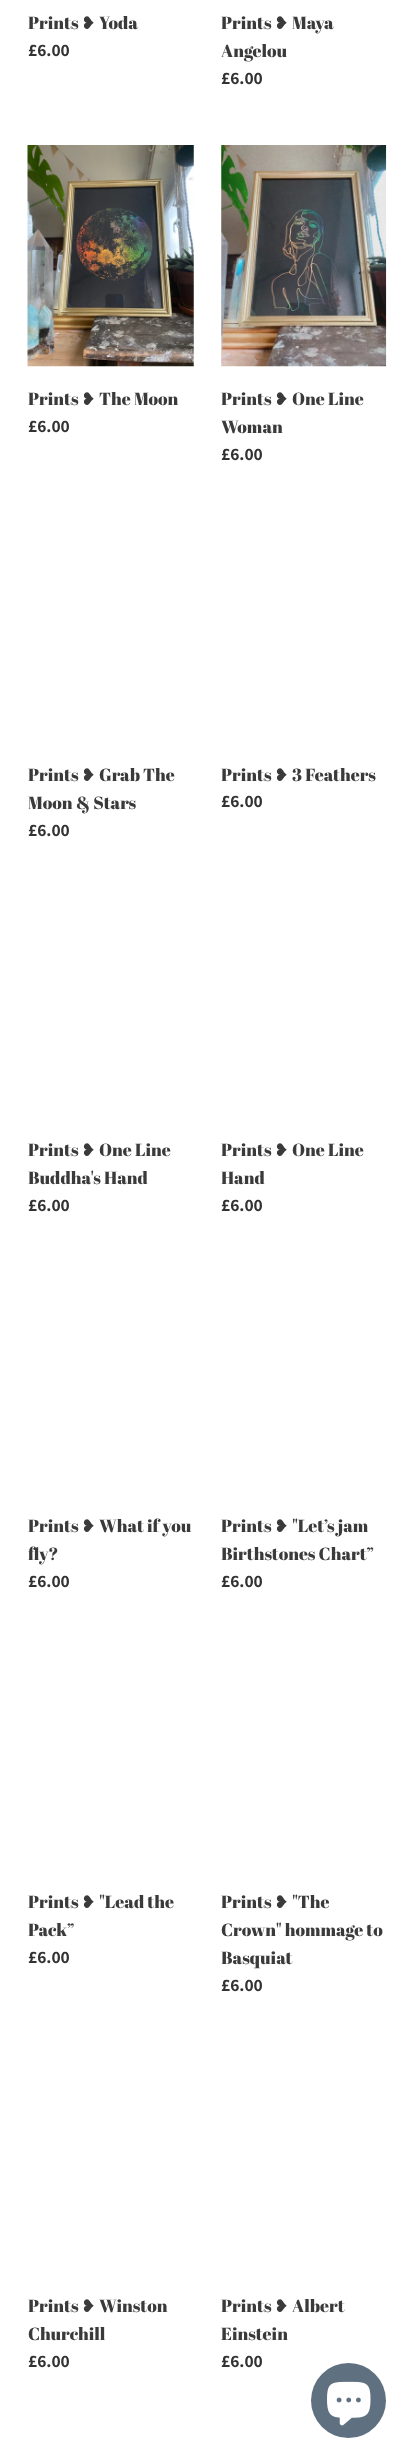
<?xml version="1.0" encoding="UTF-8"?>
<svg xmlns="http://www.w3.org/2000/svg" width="413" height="2463">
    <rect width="100%" height="100%" fill="#FFFFFF"/>
    <text x="28" y="29" font-family="Abril Fatface" font-size="17.5" fill="#3A3A3A">Prints</text>
    <text x="81" y="29" font-family="DejaVu Sans" font-size="17.5" fill="#3A3A3A">❥</text>
    <text x="99" y="29" font-family="Abril Fatface" font-size="17.5" fill="#3A3A3A">Yoda</text>
    <text x="28" y="56" font-family="Assistant" font-size="17.5" font-weight="700" fill="#333232">£6.00</text>
    <text x="221" y="29" font-family="Abril Fatface" font-size="17.5" fill="#3A3A3A">Prints</text>
    <text x="274" y="29" font-family="DejaVu Sans" font-size="17.5" fill="#3A3A3A">❥</text>
    <text x="292" y="29" font-family="Abril Fatface" font-size="17.5" fill="#3A3A3A">Maya</text>
    <text x="221" y="57" font-family="Abril Fatface" font-size="17.5" fill="#3A3A3A">Angelou</text>
    <text x="221" y="84" font-family="Assistant" font-size="17.5" font-weight="700" fill="#333232">£6.00</text>
    <image x="27" y="145" width="167" height="222" href="img_01.png"/>
    <text x="28" y="405" font-family="Abril Fatface" font-size="17.5" fill="#3A3A3A">Prints</text>
    <text x="81" y="405" font-family="DejaVu Sans" font-size="17.5" fill="#3A3A3A">❥</text>
    <text x="99" y="405" font-family="Abril Fatface" font-size="17.5" fill="#3A3A3A">The Moon</text>
    <text x="28" y="432" font-family="Assistant" font-size="17.5" font-weight="700" fill="#333232">£6.00</text>
    <image x="221" y="145" width="166" height="222" href="img_02.png"/>
    <text x="221" y="405" font-family="Abril Fatface" font-size="17.5" fill="#3A3A3A">Prints</text>
    <text x="274" y="405" font-family="DejaVu Sans" font-size="17.5" fill="#3A3A3A">❥</text>
    <text x="292" y="405" font-family="Abril Fatface" font-size="17.5" fill="#3A3A3A">One Line</text>
    <text x="221" y="433" font-family="Abril Fatface" font-size="17.5" fill="#3A3A3A">Woman</text>
    <text x="221" y="460" font-family="Assistant" font-size="17.5" font-weight="700" fill="#333232">£6.00</text>
    <text x="28" y="781" font-family="Abril Fatface" font-size="17.5" fill="#3A3A3A">Prints</text>
    <text x="81" y="781" font-family="DejaVu Sans" font-size="17.5" fill="#3A3A3A">❥</text>
    <text x="99" y="781" font-family="Abril Fatface" font-size="17.5" fill="#3A3A3A">Grab The</text>
    <text x="28" y="809" font-family="Abril Fatface" font-size="17.5" fill="#3A3A3A">Moon &amp; Stars</text>
    <text x="28" y="836" font-family="Assistant" font-size="17.5" font-weight="700" fill="#333232">£6.00</text>
    <text x="221" y="781" font-family="Abril Fatface" font-size="17.5" fill="#3A3A3A">Prints</text>
    <text x="274" y="781" font-family="DejaVu Sans" font-size="17.5" fill="#3A3A3A">❥</text>
    <text x="292" y="781" font-family="Abril Fatface" font-size="17.5" fill="#3A3A3A">3 Feathers</text>
    <text x="221" y="807" font-family="Assistant" font-size="17.5" font-weight="700" fill="#333232">£6.00</text>
    <text x="28" y="1156" font-family="Abril Fatface" font-size="17.5" fill="#3A3A3A">Prints</text>
    <text x="81" y="1156" font-family="DejaVu Sans" font-size="17.5" fill="#3A3A3A">❥</text>
    <text x="99" y="1156" font-family="Abril Fatface" font-size="17.5" fill="#3A3A3A">One Line</text>
    <text x="28" y="1184" font-family="Abril Fatface" font-size="17.5" fill="#3A3A3A">Buddha's Hand</text>
    <text x="28" y="1211" font-family="Assistant" font-size="17.5" font-weight="700" fill="#333232">£6.00</text>
    <text x="221" y="1156" font-family="Abril Fatface" font-size="17.5" fill="#3A3A3A">Prints</text>
    <text x="274" y="1156" font-family="DejaVu Sans" font-size="17.5" fill="#3A3A3A">❥</text>
    <text x="292" y="1156" font-family="Abril Fatface" font-size="17.5" fill="#3A3A3A">One Line</text>
    <text x="221" y="1184" font-family="Abril Fatface" font-size="17.5" fill="#3A3A3A">Hand</text>
    <text x="221" y="1211" font-family="Assistant" font-size="17.5" font-weight="700" fill="#333232">£6.00</text>
    <text x="28" y="1532" font-family="Abril Fatface" font-size="17.5" fill="#3A3A3A">Prints</text>
    <text x="81" y="1532" font-family="DejaVu Sans" font-size="17.5" fill="#3A3A3A">❥</text>
    <text x="99" y="1532" font-family="Abril Fatface" font-size="17.5" fill="#3A3A3A">What if you</text>
    <text x="28" y="1560" font-family="Abril Fatface" font-size="17.5" fill="#3A3A3A">fly?</text>
    <text x="28" y="1587" font-family="Assistant" font-size="17.5" font-weight="700" fill="#333232">£6.00</text>
    <text x="221" y="1532" font-family="Abril Fatface" font-size="17.5" fill="#3A3A3A">Prints</text>
    <text x="274" y="1532" font-family="DejaVu Sans" font-size="17.5" fill="#3A3A3A">❥</text>
    <text x="292" y="1532" font-family="Abril Fatface" font-size="17.5" fill="#3A3A3A">"Let’s jam</text>
    <text x="221" y="1560" font-family="Abril Fatface" font-size="17.5" fill="#3A3A3A">Birthstones Chart”</text>
    <text x="221" y="1587" font-family="Assistant" font-size="17.5" font-weight="700" fill="#333232">£6.00</text>
    <text x="28" y="1908" font-family="Abril Fatface" font-size="17.5" fill="#3A3A3A">Prints</text>
    <text x="81" y="1908" font-family="DejaVu Sans" font-size="17.5" fill="#3A3A3A">❥</text>
    <text x="99" y="1908" font-family="Abril Fatface" font-size="17.5" fill="#3A3A3A">"Lead the</text>
    <text x="28" y="1936" font-family="Abril Fatface" font-size="17.5" fill="#3A3A3A">Pack”</text>
    <text x="28" y="1963" font-family="Assistant" font-size="17.5" font-weight="700" fill="#333232">£6.00</text>
    <text x="221" y="1908" font-family="Abril Fatface" font-size="17.5" fill="#3A3A3A">Prints</text>
    <text x="274" y="1908" font-family="DejaVu Sans" font-size="17.5" fill="#3A3A3A">❥</text>
    <text x="292" y="1908" font-family="Abril Fatface" font-size="17.5" fill="#3A3A3A">"The</text>
    <text font-family="Abril Fatface" font-size="17.5" fill="#3A3A3A">
        <tspan x="221" y="1936">Crown" hommage to</tspan>
        <tspan x="221" y="1964">Basquiat</tspan>
    </text>
    <text x="221" y="1991" font-family="Assistant" font-size="17.5" font-weight="700" fill="#333232">£6.00</text>
    <text x="28" y="2312" font-family="Abril Fatface" font-size="17.5" fill="#3A3A3A">Prints</text>
    <text x="81" y="2312" font-family="DejaVu Sans" font-size="17.5" fill="#3A3A3A">❥</text>
    <text x="99" y="2312" font-family="Abril Fatface" font-size="17.5" fill="#3A3A3A">Winston</text>
    <text x="28" y="2340" font-family="Abril Fatface" font-size="17.5" fill="#3A3A3A">Churchill</text>
    <text x="28" y="2367" font-family="Assistant" font-size="17.5" font-weight="700" fill="#333232">£6.00</text>
    <text x="221" y="2312" font-family="Abril Fatface" font-size="17.5" fill="#3A3A3A">Prints</text>
    <text x="274" y="2312" font-family="DejaVu Sans" font-size="17.5" fill="#3A3A3A">❥</text>
    <text x="292" y="2312" font-family="Abril Fatface" font-size="17.5" fill="#3A3A3A">Albert</text>
    <text x="221" y="2340" font-family="Abril Fatface" font-size="17.5" fill="#3A3A3A">Einstein</text>
    <text x="221" y="2367" font-family="Assistant" font-size="17.5" font-weight="700" fill="#333232">£6.00</text>
    <circle cx="348.5" cy="2400.5" r="37.5" fill="#5F7080"/>
    <image x="327" y="2381" width="44" height="45" href="img_03.png"/>
</svg>
